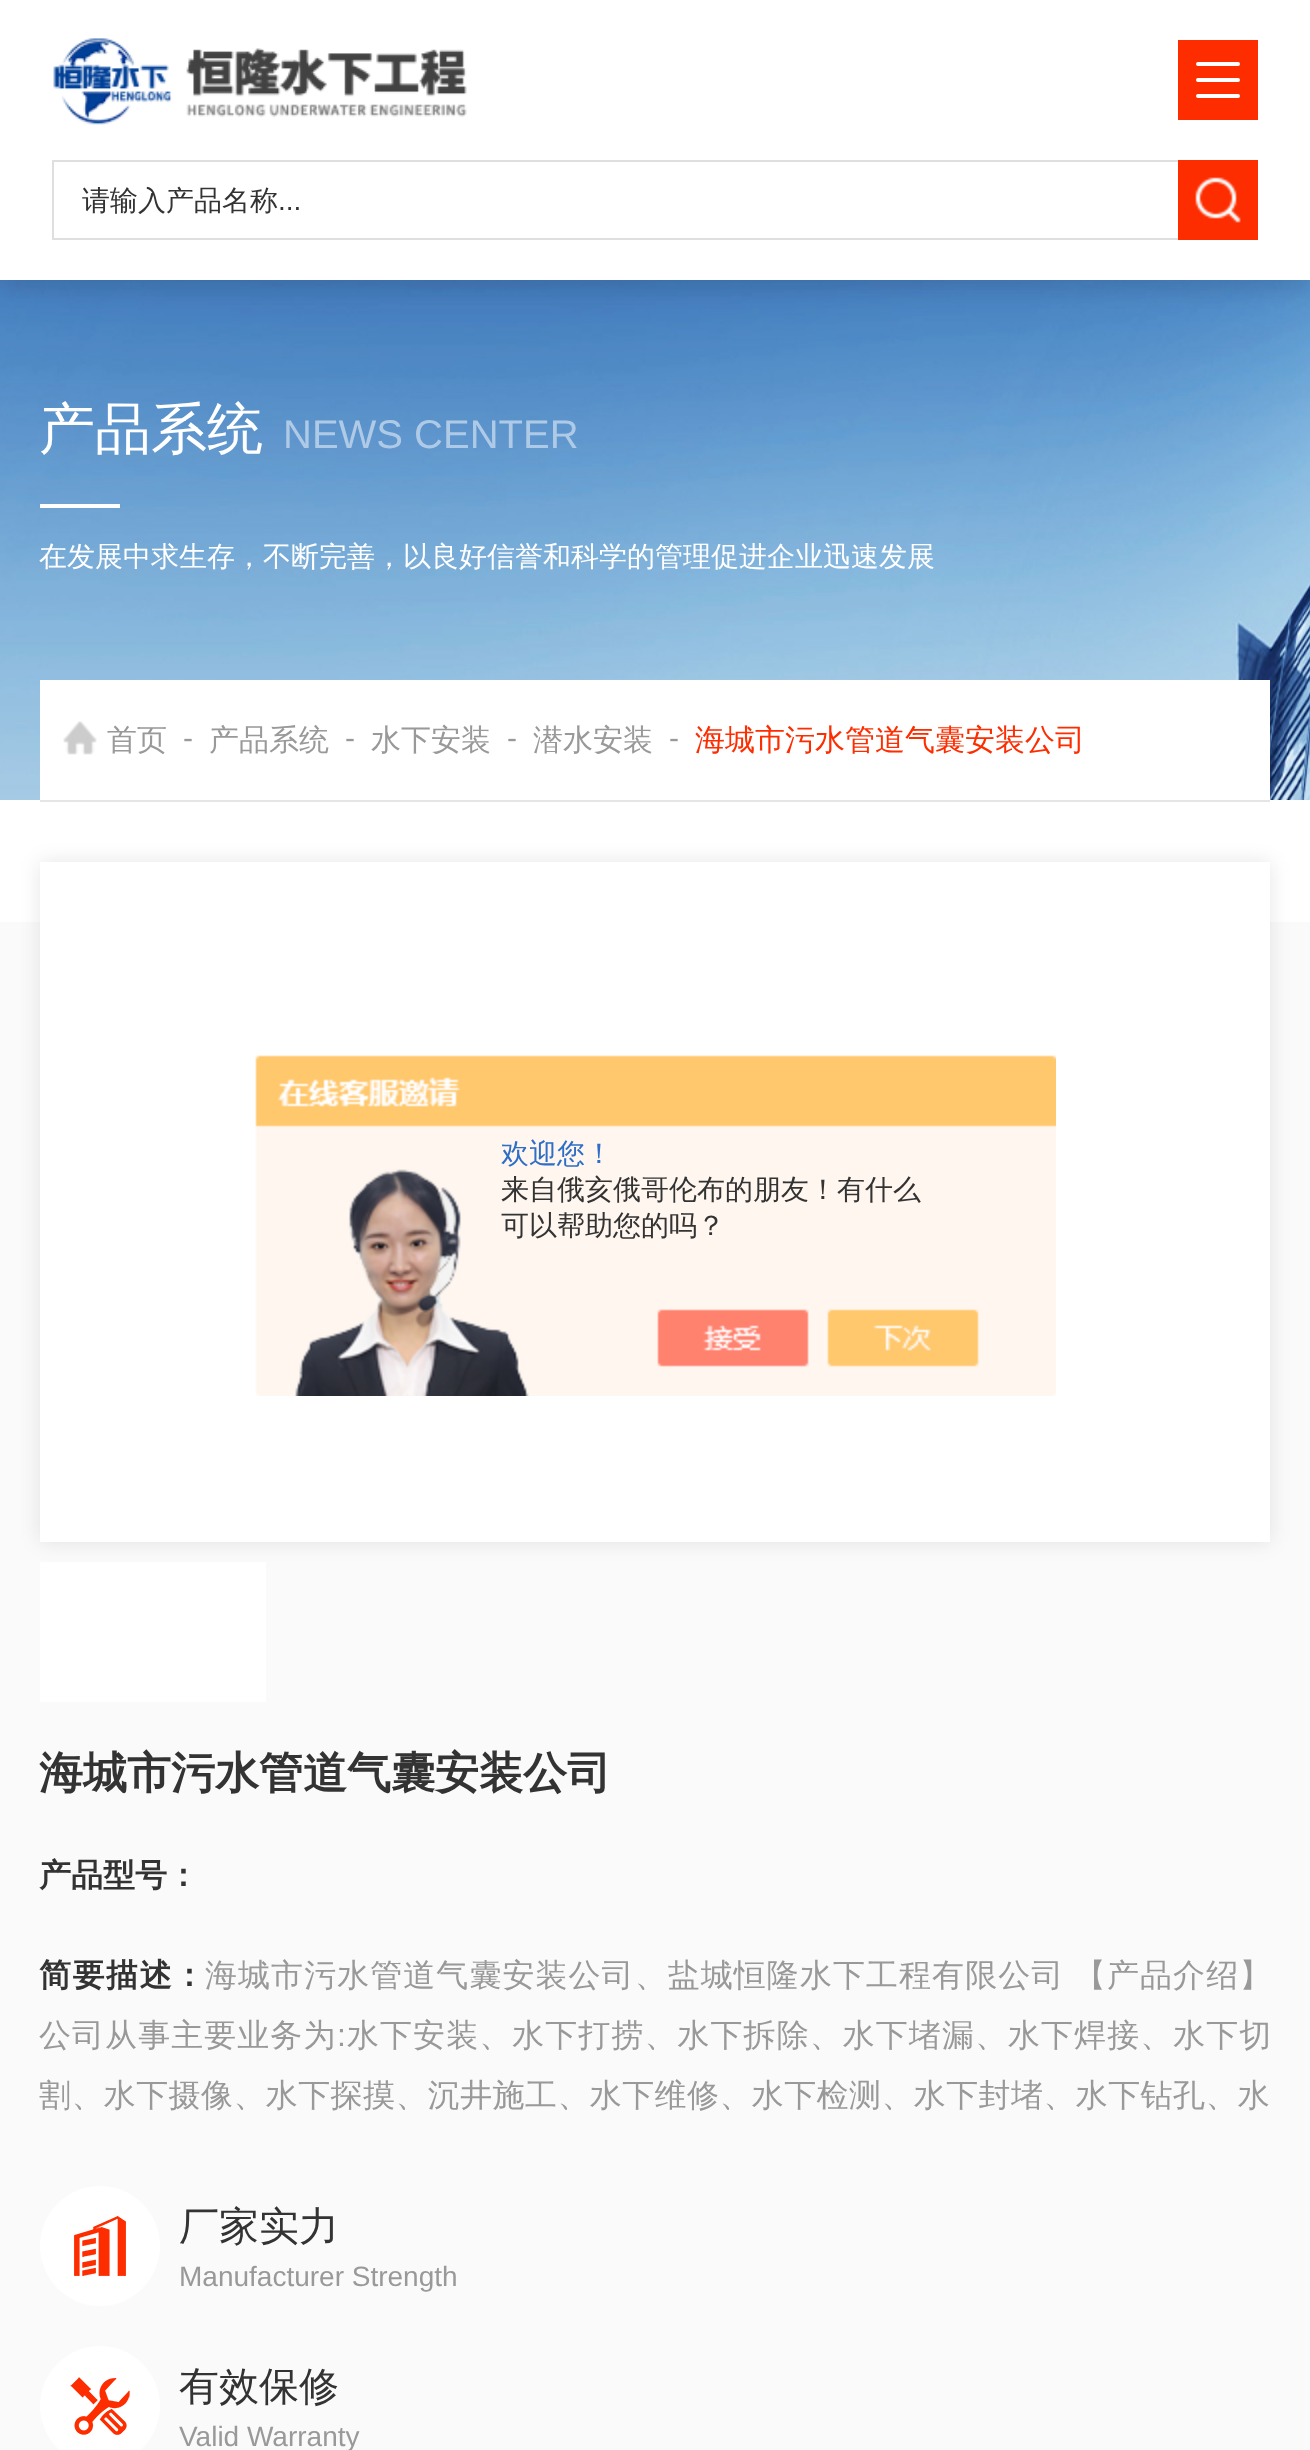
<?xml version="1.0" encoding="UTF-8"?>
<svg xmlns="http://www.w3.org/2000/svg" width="1310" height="2450">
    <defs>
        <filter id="blur1" x="-50%" y="-200%" width="200%" height="500%"><feGaussianBlur stdDeviation="10"/></filter>
    </defs>
    <rect width="100%" height="100%" fill="#FFFFFF"/>
    <image x="0" y="280" width="1310" height="520" href="img_03.png"/>
    <rect x="0" y="10" width="1310" height="280" fill="#000000" fill-opacity="0.1" filter="url(#blur1)"/>
    <rect x="0" y="0" width="1310" height="280" fill="#FFFFFF"/>
    <image x="53" y="38" width="414" height="87" href="img_01.png"/>
    <rect x="1178" y="40" width="80" height="80" fill="#FD2D00"/>
    <rect x="1196" y="62" width="44" height="4" rx="2" fill="#FFFFFF"/>
    <rect x="1196" y="78" width="44" height="4" rx="2" fill="#FFFFFF"/>
    <rect x="1196" y="94" width="44" height="4" rx="2" fill="#FFFFFF"/>
    <rect x="52" y="160" width="1126" height="2" fill="#DFDFDF"/>
    <rect x="52" y="238" width="1126" height="2" fill="#DFDFDF"/>
    <rect x="52" y="160" width="2" height="80" fill="#DFDFDF"/>
    <text x="82" y="210" font-family="WenQuanYi Zen Hei" font-size="28" font-weight="500" fill="#333333">请输入产品名称</text>
    <text x="278" y="210" font-family="Liberation Sans" font-size="28" fill="#333333">...</text>
    <rect x="1178" y="160" width="80" height="80" fill="#FD2D00"/>
    <image x="1195" y="177" width="46" height="46" href="img_02.png"/>
    <text x="39" y="448" font-family="WenQuanYi Zen Hei" font-size="56" font-weight="500" fill="#FFFFFF">产品系统</text>
    <text x="283" y="448" font-family="Liberation Sans" font-size="40" fill="#AECAE6">NEWS CENTER</text>
    <rect x="40" y="504" width="80" height="4" fill="#FFFFFF"/>
    <text x="39" y="566" font-family="WenQuanYi Zen Hei" font-size="28" font-weight="500" fill="#FFFFFF">在发展中求生存，不断完善，以良好信誉和科学的管理促进企业迅速发展</text>
    <rect x="40" y="680" width="1230" height="120" fill="#FFFFFF"/>
    <rect x="40" y="800" width="1230" height="2" fill="#E5E5E5"/>
    <image x="63" y="721" width="34" height="34" href="img_04.png"/>
    <text x="107" y="750" font-family="WenQuanYi Zen Hei" font-size="30" font-weight="500" fill="#999999">首页</text>
    <text x="183" y="748" font-family="Liberation Sans" font-size="30" fill="#999999">-</text>
    <text x="209" y="750" font-family="WenQuanYi Zen Hei" font-size="30" font-weight="500" fill="#999999">产品系统</text>
    <text x="345" y="748" font-family="Liberation Sans" font-size="30" fill="#999999">-</text>
    <text x="371" y="750" font-family="WenQuanYi Zen Hei" font-size="30" font-weight="500" fill="#999999">水下安装</text>
    <text x="507" y="748" font-family="Liberation Sans" font-size="30" fill="#999999">-</text>
    <text x="533" y="750" font-family="WenQuanYi Zen Hei" font-size="30" font-weight="500" fill="#999999">潜水安装</text>
    <text x="669" y="748" font-family="Liberation Sans" font-size="30" fill="#999999">-</text>
    <text x="695" y="750" font-family="WenQuanYi Zen Hei" font-size="30" font-weight="500" fill="#FD2D00">海城市污水管道气囊安装公司</text>
    <rect x="0" y="922" width="1310" height="1528" fill="#FAFAFA"/>
    <rect x="40" y="862" width="1230" height="680" fill="#000000" fill-opacity="0.1" filter="url(#blur1)"/>
    <rect x="40" y="862" width="1230" height="680" fill="#FFFFFF"/>
    <image x="255" y="1055" width="801" height="341" href="img_05.png"/>
    <text x="501" y="1163" font-family="WenQuanYi Zen Hei" font-size="28" font-weight="500" fill="#2E6EC6">欢迎您！</text>
    <text font-family="WenQuanYi Zen Hei" font-size="28" font-weight="500" fill="#333333">
        <tspan x="501" y="1199">来自俄亥俄哥伦布的朋友！有什么</tspan>
        <tspan x="501" y="1235">可以帮助您的吗？</tspan>
    </text>
    <rect x="40" y="1562" width="226" height="140" fill="#FFFFFF"/>
    <text x="39" y="1788" font-family="WenQuanYi Zen Hei" font-size="44" font-weight="700" fill="#333333">海城市污水管道气囊安装公司</text>
    <text x="39" y="1886" font-family="WenQuanYi Zen Hei" font-size="32" font-weight="700" fill="#333333">产品型号：</text>
    <text x="39" y="1986" font-family="WenQuanYi Zen Hei" font-size="32" font-weight="700" letter-spacing="1.5" fill="#333333">简要描述：</text>
    <text x="205" y="1986" word-spacing="-1" font-family="WenQuanYi Zen Hei" font-size="32" font-weight="500" letter-spacing="1.05" fill="#999999">海城市污水管道气囊安装公司、盐城恒隆水下工程有限公司 【产品介绍】</text>
    <text x="39" y="2046" font-family="WenQuanYi Zen Hei" font-size="32" font-weight="500" letter-spacing="1.05" fill="#999999">公司从事主要业务为</text>
    <text x="337" y="2046" font-family="Liberation Sans" font-size="32" letter-spacing="1.05" fill="#999999">:</text>
    <text x="347" y="2046" font-family="WenQuanYi Zen Hei" font-size="32" font-weight="500" letter-spacing="1.05" fill="#999999">水下安装、水下打捞、水下拆除、水下堵漏、水下焊接、水下切</text>
    <text x="39" y="2106" font-family="WenQuanYi Zen Hei" font-size="32" font-weight="500" letter-spacing="0.4" fill="#999999">割、水下摄像、水下探摸、沉井施工、水下维修、水下检测、水下封堵、水下钻孔、水</text>
    <circle cx="100" cy="2246" r="60" fill="#FFFFFF"/>
    <image x="74" y="2216" width="52" height="60" href="img_06.png"/>
    <text x="179" y="2240" font-family="WenQuanYi Zen Hei" font-size="40" font-weight="500" fill="#333333">厂家实力</text>
    <text x="179" y="2286" font-family="Liberation Sans" font-size="28" fill="#999999">Manufacturer Strength</text>
    <circle cx="100" cy="2406" r="60" fill="#FFFFFF"/>
    <image x="70" y="2377" width="60" height="58" href="img_07.png"/>
    <text x="179" y="2400" font-family="WenQuanYi Zen Hei" font-size="40" font-weight="500" fill="#333333">有效保修</text>
    <text x="179" y="2446" font-family="Liberation Sans" font-size="28" fill="#999999">Valid Warranty</text>
</svg>
